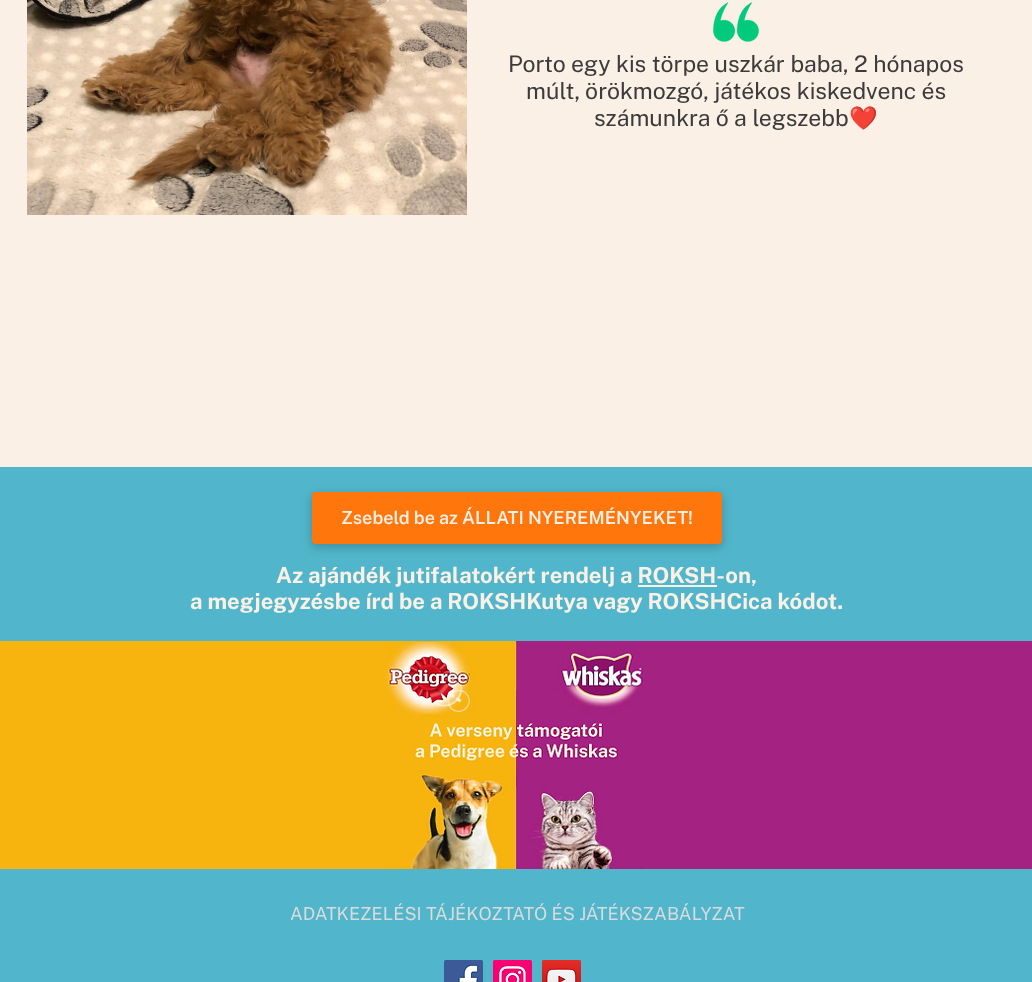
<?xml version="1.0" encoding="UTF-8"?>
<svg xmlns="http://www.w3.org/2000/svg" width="1032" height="982">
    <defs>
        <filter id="blur1" x="-50%" y="-200%" width="200%" height="500%"><feGaussianBlur stdDeviation="5"/></filter>
    </defs>
    <rect width="100%" height="100%" fill="#FAF0E6"/>
    <image x="27" y="0" width="440" height="215" href="img_01.png"/>
    <image x="713" y="2" width="46" height="40" href="img_02.png"/>
    <text x="508" y="72" font-family="Public Sans" font-size="23" fill="#3B3B3B">Porto egy kis törpe uszkár baba, 2 hónapos</text>
    <text x="526" y="99" font-family="Public Sans" font-size="23" fill="#3B3B3B">múlt, örökmozgó, játékos kiskedvenc és</text>
    <text x="594" y="126" font-family="Public Sans" font-size="23" fill="#3B3B3B">számunkra ő a legszebb</text>
    <text x="849" y="126" font-family="Noto Color Emoji" font-size="23" fill="#3B3B3B">❤️</text>
    <rect x="0" y="467" width="1032" height="174" fill="#51B6CB"/>
    <rect x="311" y="494" width="412" height="54" rx="5" fill="#000000" fill-opacity="0.2" filter="url(#blur1)"/>
    <rect x="312" y="492" width="410" height="52" rx="4" fill="#FF760C"/>
    <text x="341" y="524" font-family="Public Sans" font-size="18" font-weight="600" fill="#FAF0E6">Zsebeld be az ÁLLATI NYEREMÉNYEKET!</text>
    <text x="276" y="583" font-family="Public Sans" font-size="22" font-weight="700" fill="#FAF0E6">Az ajándék jutifalatokért rendelj a ROKSH-on,</text>
    <rect x="638" y="585" width="79" height="2" fill="#FAF0E6"/>
    <text x="190" y="609" font-family="Public Sans" font-size="22" font-weight="700" fill="#FAF0E6">a megjegyzésbe írd be a ROKSHKutya vagy ROKSHCica kódot.</text>
    <rect x="0" y="641" width="516" height="228" fill="#F7B40E"/>
    <rect x="516" y="641" width="516" height="228" fill="#A42282"/>
    <image x="386" y="642" width="259" height="227" href="img_03.png"/>
    <rect x="0" y="869" width="1032" height="113" fill="#51B6CB"/>
    <text x="290" y="920" font-family="Public Sans" font-size="18" fill="#DBDBDB">ADATKEZELÉSI TÁJÉKOZTATÓ ÉS JÁTÉKSZABÁLYZAT</text>
    <image x="444" y="960" width="39" height="22" href="img_04.png"/>
    <image x="493" y="960" width="39" height="22" href="img_05.png"/>
    <image x="542" y="960" width="39" height="22" href="img_06.png"/>
</svg>
